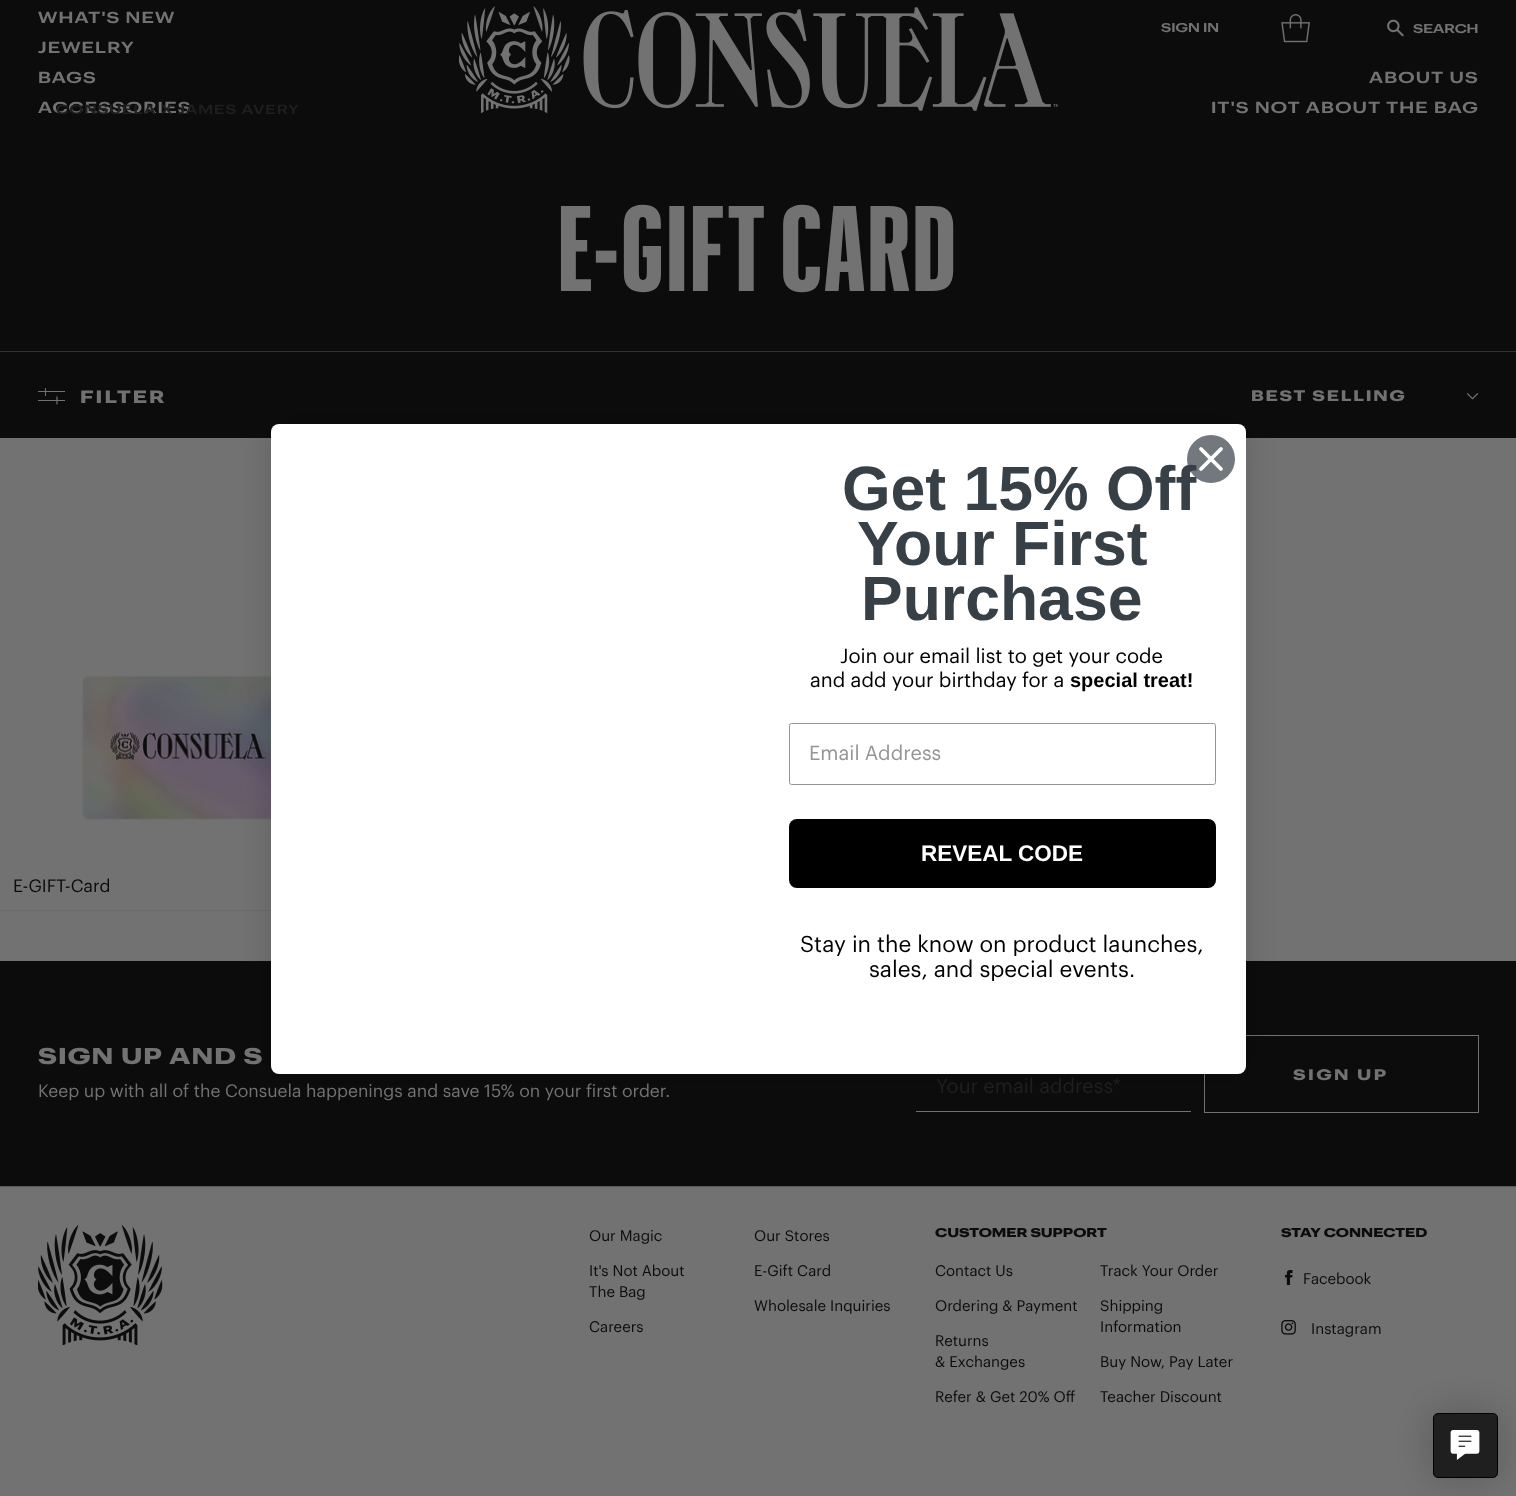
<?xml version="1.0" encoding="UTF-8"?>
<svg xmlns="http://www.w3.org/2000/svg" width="1516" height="1496">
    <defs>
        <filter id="blur1" x="-50%" y="-200%" width="200%" height="500%"><feGaussianBlur stdDeviation="19"/></filter>
    </defs>
    <rect width="100%" height="100%" fill="#727272"/>
    <rect x="0" y="0" width="1516" height="351" fill="#0C0C0C"/>
    <text font-family="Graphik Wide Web" font-size="15.6" font-weight="600" letter-spacing="1.2" fill="#727272">
        <tspan x="38" y="23">WHAT'S NEW</tspan>
        <tspan x="38" y="53">JEWELRY</tspan>
    </text>
    <text x="38" y="113" font-family="Graphik Wide Web" font-size="15.6" font-weight="600" letter-spacing="1.2" fill="#727272">ACCESSORIES</text>
    <text x="56" y="114" font-family="Graphik Wide Web" font-size="13.1" font-weight="600" letter-spacing="1" fill="#1F1F1F">CONSUELA X JAMES AVERY</text>
    <text x="38" y="83" font-family="Graphik Wide Web" font-size="15.6" font-weight="600" letter-spacing="1.2" fill="#727272">BAGS</text>
    <image x="459" y="6" width="599" height="108" href="img_01.png"/>
    <text x="1161" y="32" font-family="Graphik Wide Web" font-size="12.5" font-weight="600" fill="#727272">SIGN IN</text>
    <image x="1281" y="14" width="29" height="29" href="img_02.png"/>
    <image x="1387" y="19" width="17" height="18" href="img_03.png"/>
    <text x="1413" y="33" font-family="Graphik Wide Web" font-size="12.5" font-weight="600" fill="#727272">SEARCH</text>
    <text x="1369" y="83" font-family="Graphik Wide Web" font-size="15.6" font-weight="600" letter-spacing="1.2" fill="#727272">ABOUT US</text>
    <text x="1211" y="113" font-family="Graphik Wide Web" font-size="15.6" font-weight="600" letter-spacing="1.2" fill="#727272">IT'S NOT ABOUT THE BAG</text>
    <text x="558" y="291" font-family="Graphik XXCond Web" font-size="119" font-weight="700" letter-spacing="2.4" fill="#727272">E-GIFT CARD</text>
    <rect x="0" y="352" width="1516" height="86" fill="#0C0C0C"/>
    <rect x="0" y="351" width="1516" height="1" fill="#313131"/>
    <image x="38" y="388" width="27" height="17" href="img_04.png"/>
    <text x="80" y="403" font-family="Graphik Wide Web" font-size="17.5" font-weight="700" letter-spacing="2" fill="#727272">FILTER</text>
    <text x="1251" y="401" font-family="Graphik Wide Web" font-size="15" font-weight="700" letter-spacing="1.75" fill="#727272">BEST SELLING</text>
    <image x="1466" y="393" width="13" height="7" href="img_05.png"/>
    <path d="M 379 911 H 0 V 910 H 378 Z" fill="#636363" fill-opacity="0.5"/>
    <image x="82" y="676" width="189" height="144" href="img_06.png"/>
    <text x="13" y="892" font-family="Graphik" font-size="17.5" fill="#0C0C0C">E-GIFT-Card</text>
    <rect x="0" y="961" width="1516" height="225" fill="#0C0C0C"/>
    <rect x="1204.5" y="1035.5" width="274" height="77" fill="none" stroke="#727272"/>
    <rect x="916" y="1111" width="275" height="1" fill="#727272"/>
    <rect x="271" y="424" width="975" height="650" rx="8" fill="#000000" fill-opacity="0.15" filter="url(#blur1)"/>
    <rect x="271" y="424" width="975" height="650" rx="8" fill="#FFFFFF"/>
    <text x="842" y="510" font-family="Liberation Sans" font-size="62.5" font-weight="700" fill="#373F47">Get 15% Off</text>
    <circle cx="1211" cy="459" r="24" fill="#373F47" fill-opacity="0.7"/>
    <path d="M 1201 449 L 1221 469 M 1201 469 L 1221 449 Z" fill="none" stroke="#FFFFFF" stroke-width="3.8" stroke-linecap="round" stroke-linejoin="round"/>
    <text x="857" y="565" font-family="Liberation Sans" font-size="62.5" font-weight="700" fill="#373F47">Your First</text>
    <text x="861" y="620" font-family="Liberation Sans" font-size="62.5" font-weight="700" fill="#373F47">Purchase</text>
    <text x="840" y="663" font-family="Graphik" font-size="20" fill="#000000">Join our email list to get your code</text>
    <text x="810" y="687" font-family="Graphik" font-size="20" fill="#000000">and add your birthday for a</text>
    <text x="1070" y="687" font-family="Liberation Sans" font-size="20" font-weight="700" fill="#000000">special treat!</text>
    <rect x="789.5" y="723.5" width="426" height="61" rx="2" fill="none" stroke="#949596"/>
    <text x="809" y="760" font-family="'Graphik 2'" font-size="20" fill="#949596">Email Address</text>
    <rect x="789" y="819" width="427" height="69" rx="8" fill="#000000"/>
    <text x="921" y="861" font-family="Liberation Sans" font-size="22.5" font-weight="700" fill="#FFFFFF">REVEAL CODE</text>
    <text x="800" y="952" font-family="'Graphik 2'" font-size="22.5" fill="#000000">Stay in the know on product launches,</text>
    <text x="869" y="977" font-family="'Graphik 2'" font-size="22.5" fill="#000000">sales, and special events</text>
    <text x="1129" y="977" font-family="Liberation Sans" font-size="22.5" fill="#000000">.</text>
    <text x="38" y="1064" font-family="Graphik Wide Web" font-size="22.5" font-weight="700" letter-spacing="1.1" fill="#727272">SIGN UP AND S</text>
    <text x="38" y="1097" font-family="Graphik" font-size="17.5" fill="#727272">Keep up with all of the Consuela happenings and save 15% on your first order.</text>
    <text x="1293" y="1080" font-family="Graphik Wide" font-size="15" font-weight="700" letter-spacing="2.5" fill="#727272">SIGN UP</text>
    <text x="936" y="1093" font-family="'Graphik 2'" font-size="20" fill="#1F1F1F">Your email address*</text>
    <rect x="0" y="1186" width="1516" height="1" fill="#585858"/>
    <image x="38" y="1225" width="125" height="120" href="img_07.png"/>
    <text x="589" y="1241" font-family="Graphik" font-size="15" fill="#0C0C0C">Our Magic</text>
    <text x="754" y="1241" font-family="Graphik" font-size="15" fill="#0C0C0C">Our Stores</text>
    <text font-family="Graphik" font-size="15" fill="#0C0C0C">
        <tspan x="589" y="1276">It's Not About</tspan>
        <tspan x="589" y="1297">The Bag</tspan>
    </text>
    <text x="754" y="1276" font-family="Graphik" font-size="15" fill="#0C0C0C">E-Gift Card</text>
    <text x="754" y="1311" font-family="Graphik" font-size="15" fill="#0C0C0C">Wholesale Inquiries</text>
    <text x="589" y="1332" font-family="Graphik" font-size="15" fill="#0C0C0C">Careers</text>
    <text x="935" y="1237" font-family="Graphik Wide Web" font-size="12.5" font-weight="700" fill="#0C0C0C">CUSTOMER SUPPORT</text>
    <text x="935" y="1276" font-family="Graphik" font-size="15" fill="#0C0C0C">Contact Us</text>
    <text x="1100" y="1276" font-family="Graphik" font-size="15" fill="#0C0C0C">Track Your Order</text>
    <text x="935" y="1311" font-family="Graphik" font-size="15" fill="#0C0C0C">Ordering &amp; Payment</text>
    <text font-family="Graphik" font-size="15" fill="#0C0C0C">
        <tspan x="1100" y="1311">Shipping</tspan>
        <tspan x="1100" y="1332">Information</tspan>
    </text>
    <text font-family="Graphik" font-size="15" fill="#0C0C0C">
        <tspan x="935" y="1346">Returns</tspan>
        <tspan x="935" y="1367">&amp; Exchanges</tspan>
    </text>
    <text x="1100" y="1367" font-family="Graphik" font-size="15" fill="#0C0C0C">Buy Now, Pay Later</text>
    <text x="935" y="1402" font-family="Graphik" font-size="15" fill="#0C0C0C">Refer &amp; Get 20% Off</text>
    <text x="1100" y="1402" font-family="Graphik" font-size="15" fill="#0C0C0C">Teacher Discount</text>
    <text x="1281" y="1237" font-family="Graphik Wide Web" font-size="12.5" font-weight="700" fill="#0C0C0C">STAY CONNECTED</text>
    <image x="1285" y="1270" width="8" height="15" href="img_08.png"/>
    <text x="1303" y="1284" font-family="Graphik" font-size="15" fill="#0C0C0C">Facebook</text>
    <image x="1281" y="1320" width="15" height="15" href="img_09.png"/>
    <text x="1311" y="1334" font-family="Graphik" font-size="15" fill="#0C0C0C">Instagram</text>
    <rect x="1431" y="1411" width="68" height="68" rx="6" fill="#000000" fill-opacity="0.2" filter="url(#blur1)"/>
    <rect x="1433.5" y="1413.5" width="64" height="64" rx="4.5" fill="#1F1F1F" stroke="#000000"/>
    <image x="1450" y="1430" width="30" height="30" href="img_10.png"/>
</svg>
